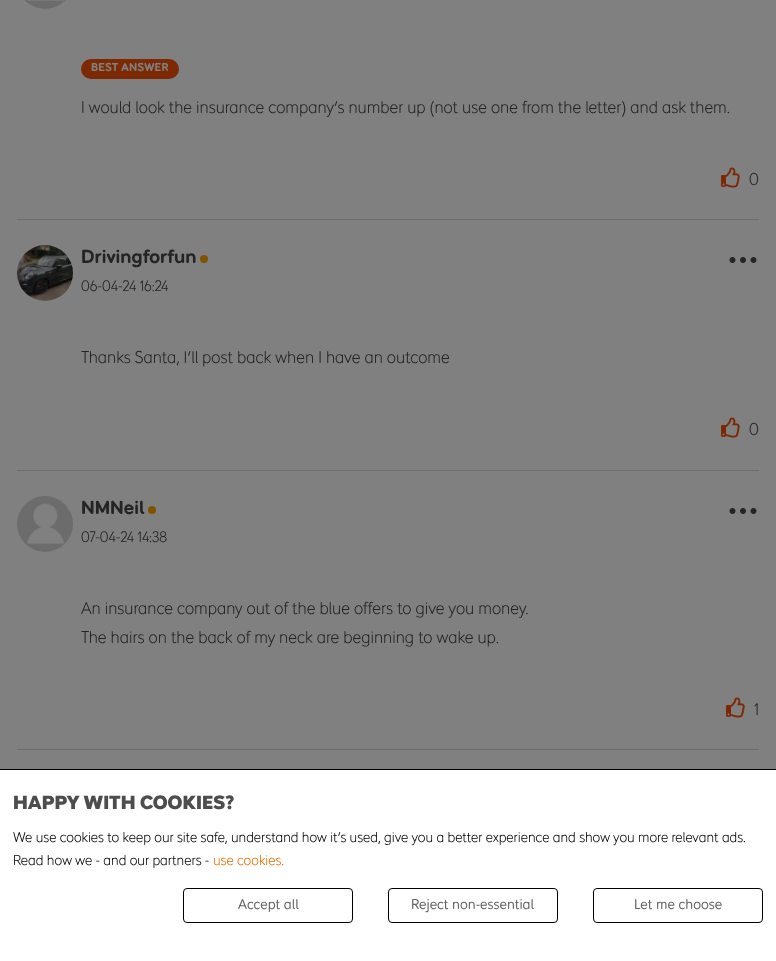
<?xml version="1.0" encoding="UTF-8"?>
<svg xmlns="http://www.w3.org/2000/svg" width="776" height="961">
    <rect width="100%" height="100%" fill="#808080"/>
    <rect x="17" y="219" width="742" height="1" fill="#6E6E6E"/>
    <image x="25" y="0" width="41" height="9" href="img_01.png"/>
    <rect x="81" y="59" width="98" height="20" rx="10" fill="#7D2904"/>
    <text x="91" y="71" font-family="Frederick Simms" font-size="12" font-weight="700" letter-spacing="0.25" fill="#808080">BEST ANSWER</text>
    <text x="81" y="113" font-family="Frederick Simms" font-size="18" font-weight="300" fill="#242424">I would look the insurance company's number up (not use one from the letter) and ask them.</text>
    <image x="721" y="167" width="19" height="21" href="img_02.png"/>
    <text x="749" y="185" font-family="Frederick Simms" font-size="18" font-weight="300" fill="#242424">0</text>
    <rect x="17" y="470" width="742" height="1" fill="#6E6E6E"/>
    <image x="17" y="245" width="56" height="56" href="img_03.png"/>
    <text x="81" y="263" font-family="Frederick Simms" font-size="20" font-weight="700" fill="#242424">Drivingforfun</text>
    <circle cx="204" cy="259" r="4" fill="#805300"/>
    <image x="729" y="257" width="28" height="6" href="img_04.png"/>
    <text x="81" y="291" font-family="Frederick Simms" font-size="16" font-weight="300" fill="#242424">06-04-24 16:24</text>
    <text x="81" y="363" font-family="Frederick Simms" font-size="18" font-weight="300" fill="#242424">Thanks Santa, I'll post back when I have an outcome</text>
    <image x="721" y="417" width="19" height="21" href="img_02.png"/>
    <text x="749" y="435" font-family="Frederick Simms" font-size="18" font-weight="300" fill="#242424">0</text>
    <rect x="17" y="749" width="742" height="1" fill="#6E6E6E"/>
    <image x="17" y="496" width="56" height="56" href="img_05.png"/>
    <text x="81" y="514" font-family="Frederick Simms" font-size="20" font-weight="700" fill="#242424">NMNeil</text>
    <circle cx="152" cy="510" r="4" fill="#805300"/>
    <image x="729" y="508" width="28" height="6" href="img_04.png"/>
    <text x="81" y="542" font-family="Frederick Simms" font-size="16" font-weight="300" fill="#242424">07-04-24 14:38</text>
    <text font-family="Frederick Simms" font-size="18" font-weight="300" fill="#242424">
        <tspan x="81" y="614">An insurance company out of the blue offers to give you money.</tspan>
        <tspan x="81" y="643">The hairs on the back of my neck are beginning to wake up.</tspan>
    </text>
    <image x="726" y="697" width="19" height="21" href="img_02.png"/>
    <text x="754" y="715" font-family="Frederick Simms" font-size="18" font-weight="300" fill="#242424">1</text>
    <rect x="0" y="770" width="776" height="191" fill="#FFFFFF"/>
    <rect x="0" y="769" width="776" height="1" fill="#000000"/>
    <text x="13" y="809" font-family="Frederick Simms" font-size="20" font-weight="800" fill="#4D4D4D">HAPPY WITH COOKIES?</text>
    <text font-family="Frederick Simms" font-size="15" font-weight="300" fill="#000000">
        <tspan x="13" y="842">We use cookies to keep our site safe, understand how it's used, give you a better experience and show you more relevant ads.</tspan>
        <tspan x="13" y="865">Read how we - and our partners -</tspan>
    </text>
    <text x="213" y="865" font-family="Frederick Simms" font-size="15" font-weight="300" fill="#EF6C00">use cookies.</text>
    <rect x="183.5" y="888.5" width="169" height="34" rx="3.5" fill="none" stroke="#000000"/>
    <text x="238" y="909" font-family="Frederick Simms" font-size="15" fill="#646464">Accept all</text>
    <rect x="388.5" y="888.5" width="169" height="34" rx="3.5" fill="none" stroke="#000000"/>
    <text x="411" y="909" font-family="Frederick Simms" font-size="15" fill="#646464">Reject non-essential</text>
    <rect x="593.5" y="888.5" width="169" height="34" rx="3.5" fill="none" stroke="#000000"/>
    <text x="634" y="909" font-family="Frederick Simms" font-size="15" fill="#646464">Let me choose</text>
</svg>
